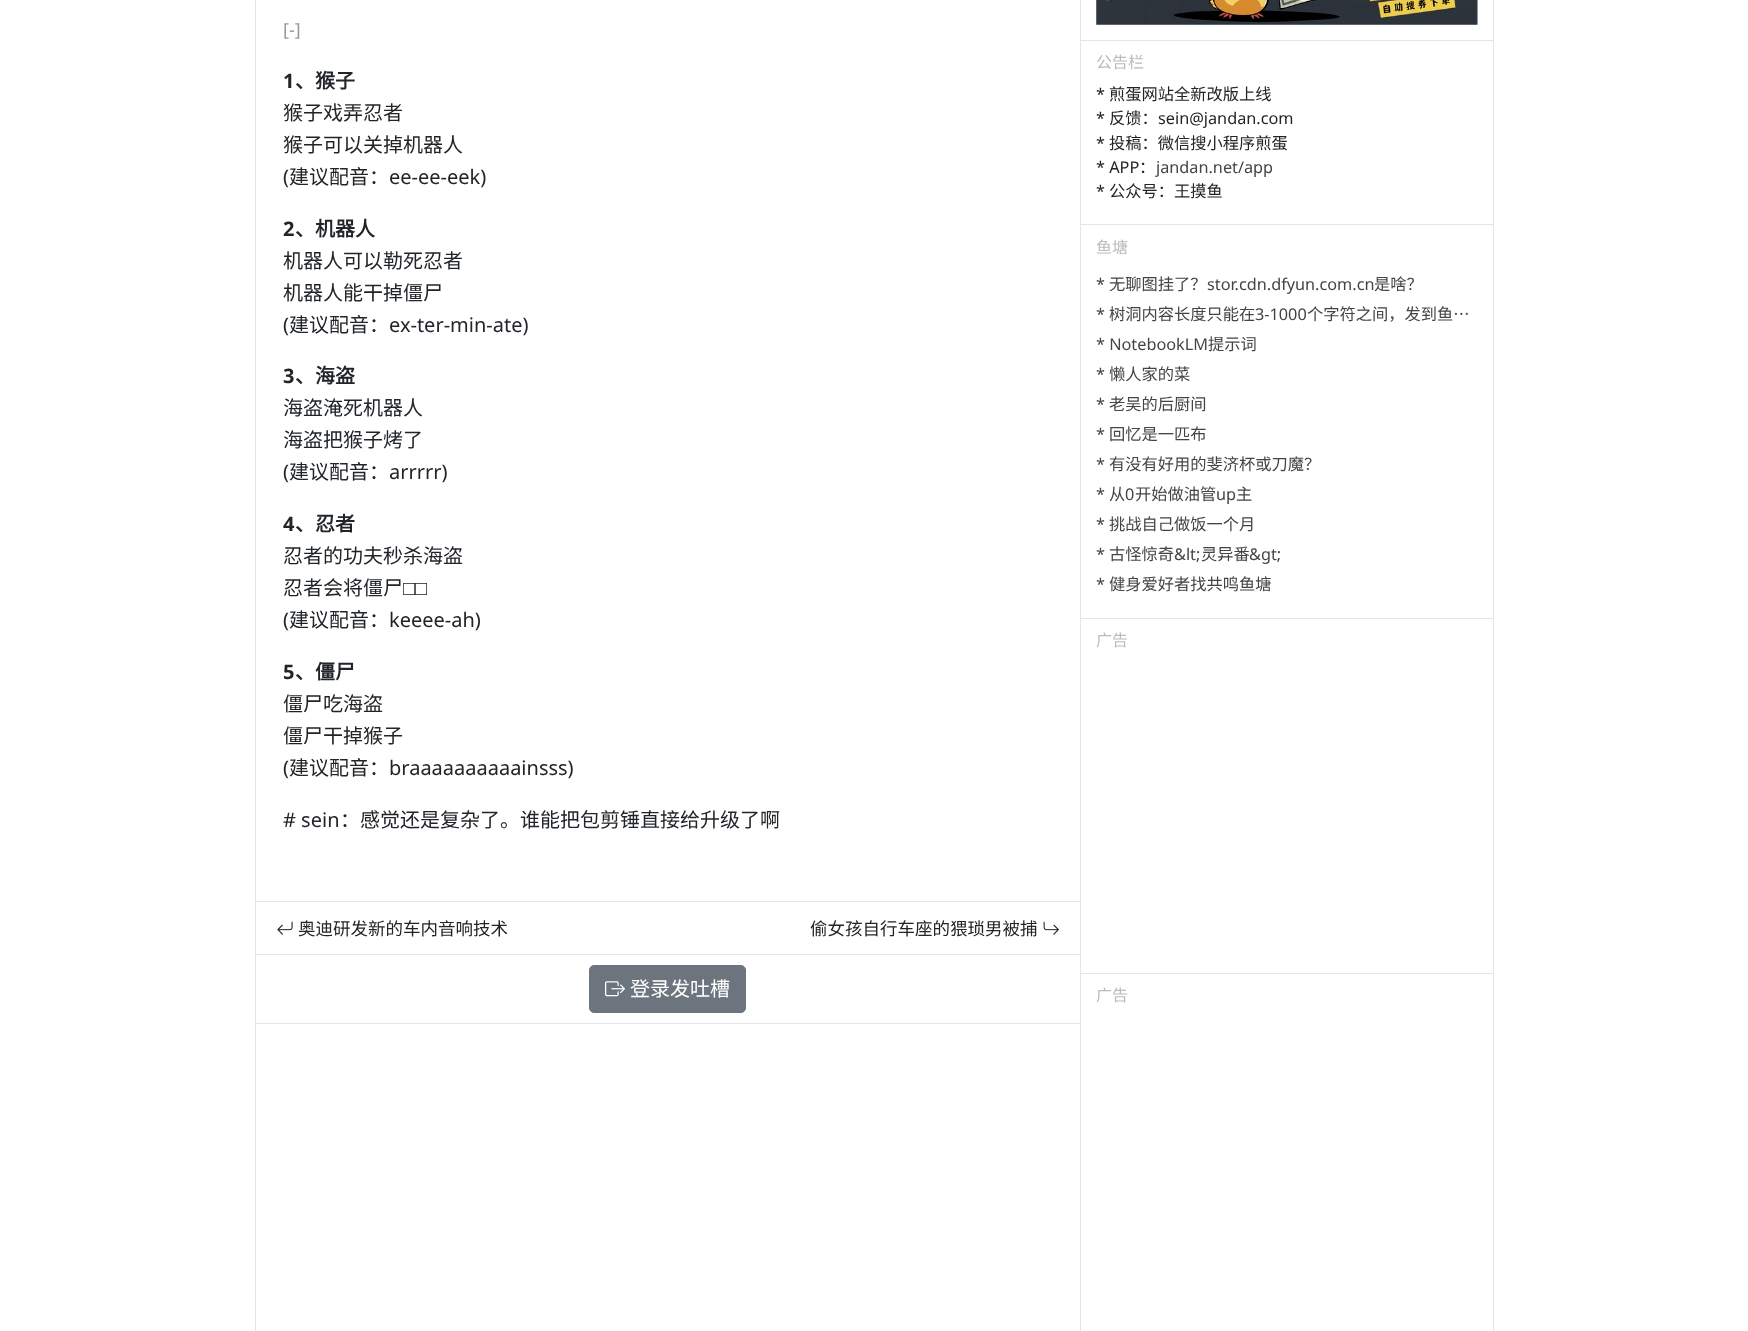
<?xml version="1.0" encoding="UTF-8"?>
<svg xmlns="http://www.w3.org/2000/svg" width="1748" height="1331">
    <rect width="100%" height="100%" fill="#FFFFFF"/>
    <rect x="1080" y="0" width="1" height="1331" fill="#E5E5E5"/>
    <rect x="255" y="0" width="1" height="1331" fill="#E5E5E5"/>
    <text x="283" y="36" font-family="Noto Sans" font-size="18" fill="#999999">[-]</text>
    <text x="283" y="88" font-family="Noto Sans" font-size="20" font-weight="700" fill="#212529">1</text>
    <text x="295" y="88" font-family="Noto Sans CJK SC" font-size="20" font-weight="700" fill="#212529">、猴子</text>
    <text font-family="Noto Sans CJK SC" font-size="20" fill="#212529">
        <tspan x="283" y="120">猴子戏弄忍者</tspan>
        <tspan x="283" y="152">猴子可以关掉机器人</tspan>
    </text>
    <text x="283" y="184" font-family="Noto Sans" font-size="20" fill="#212529">(</text>
    <text x="289" y="184" font-family="Noto Sans CJK SC" font-size="20" fill="#212529">建议配音：</text>
    <text x="389" y="184" font-family="Noto Sans" font-size="20" fill="#212529">ee-ee-eek)</text>
    <text x="283" y="236" font-family="Noto Sans" font-size="20" font-weight="700" fill="#212529">2</text>
    <text x="295" y="236" font-family="Noto Sans CJK SC" font-size="20" font-weight="700" fill="#212529">、机器人</text>
    <text font-family="Noto Sans CJK SC" font-size="20" fill="#212529">
        <tspan x="283" y="268">机器人可以勒死忍者</tspan>
        <tspan x="283" y="300">机器人能干掉僵尸</tspan>
    </text>
    <text x="283" y="332" font-family="Noto Sans" font-size="20" fill="#212529">(</text>
    <text x="289" y="332" font-family="Noto Sans CJK SC" font-size="20" fill="#212529">建议配音：</text>
    <text x="389" y="332" font-family="Noto Sans" font-size="20" fill="#212529">ex-ter-min-ate)</text>
    <text x="283" y="383" font-family="Noto Sans" font-size="20" font-weight="700" fill="#212529">3</text>
    <text x="295" y="383" font-family="Noto Sans CJK SC" font-size="20" font-weight="700" fill="#212529">、海盗</text>
    <text font-family="Noto Sans CJK SC" font-size="20" fill="#212529">
        <tspan x="283" y="415">海盗淹死机器人</tspan>
        <tspan x="283" y="447">海盗把猴子烤了</tspan>
    </text>
    <text x="283" y="479" font-family="Noto Sans" font-size="20" fill="#212529">(</text>
    <text x="289" y="479" font-family="Noto Sans CJK SC" font-size="20" fill="#212529">建议配音：</text>
    <text x="389" y="479" font-family="Noto Sans" font-size="20" fill="#212529">arrrrr)</text>
    <text x="283" y="531" font-family="Noto Sans" font-size="20" font-weight="700" fill="#212529">4</text>
    <text x="295" y="531" font-family="Noto Sans CJK SC" font-size="20" font-weight="700" fill="#212529">、忍者</text>
    <text font-family="Noto Sans CJK SC" font-size="20" fill="#212529">
        <tspan x="283" y="563">忍者的功夫秒杀海盗</tspan>
        <tspan x="283" y="595">忍者会将僵尸</tspan>
    </text>
    <text x="403" y="595" font-family="Liberation Sans" font-size="20" fill="#212529">□□</text>
    <text x="283" y="627" font-family="Noto Sans" font-size="20" fill="#212529">(</text>
    <text x="289" y="627" font-family="Noto Sans CJK SC" font-size="20" fill="#212529">建议配音：</text>
    <text x="389" y="627" font-family="Noto Sans" font-size="20" fill="#212529">keeee-ah)</text>
    <text x="283" y="679" font-family="Noto Sans" font-size="20" font-weight="700" fill="#212529">5</text>
    <text x="295" y="679" font-family="Noto Sans CJK SC" font-size="20" font-weight="700" fill="#212529">、僵尸</text>
    <text font-family="Noto Sans CJK SC" font-size="20" fill="#212529">
        <tspan x="283" y="711">僵尸吃海盗</tspan>
        <tspan x="283" y="743">僵尸干掉猴子</tspan>
    </text>
    <text x="283" y="775" font-family="Noto Sans" font-size="20" fill="#212529">(</text>
    <text x="289" y="775" font-family="Noto Sans CJK SC" font-size="20" fill="#212529">建议配音：</text>
    <text x="389" y="775" font-family="Noto Sans" font-size="20" fill="#212529">braaaaaaaaaainsss)</text>
    <text x="283" y="827" font-family="Noto Sans" font-size="20" fill="#212529"># sein</text>
    <text x="340" y="827" font-family="Noto Sans CJK SC" font-size="20" fill="#212529">：感觉还是复杂了。谁能把包剪锤直接给升级了啊</text>
    <rect x="256" y="901" width="824" height="1" fill="#E5E5E5"/>
    <image x="277" y="921" width="16" height="14" href="img_01.png"/>
    <text x="298" y="935" font-family="Noto Sans CJK SC" font-size="17.5" fill="#212529">奥迪研发新的车内音响技术</text>
    <text x="810" y="935" font-family="Noto Sans CJK SC" font-size="17.5" fill="#212529">偷女孩自行车座的猥琐男被捕</text>
    <image x="1043" y="921" width="16" height="14" href="img_02.png"/>
    <rect x="256" y="954" width="824" height="1" fill="#E5E5E5"/>
    <rect x="256" y="1023" width="824" height="1" fill="#E5E5E5"/>
    <rect x="589.5" y="965.5" width="156" height="47" rx="4.5" fill="#6C757D" stroke="#6C757D"/>
    <image x="605" y="981" width="20" height="16" href="img_03.png"/>
    <text x="630" y="996" font-family="Noto Sans CJK SC" font-size="20" fill="#FFFFFF">登录发吐槽</text>
    <rect x="1493" y="0" width="1" height="1331" fill="#E5E5E5"/>
    <image x="1096" y="0" width="382" height="25" href="img_04.png"/>
    <rect x="1081" y="40" width="412" height="1" fill="#E5E5E5"/>
    <text x="1096" y="68" font-family="Noto Sans CJK SC" font-size="16" fill="#BBBBBB">公告栏</text>
    <text x="1096" y="100" font-family="Noto Sans" font-size="16.25" fill="#212529">*</text>
    <text x="1109" y="100" font-family="Noto Sans CJK SC" font-size="16.25" fill="#212529">煎蛋网站全新改版上线</text>
    <text x="1096" y="124" font-family="Noto Sans" font-size="16.25" fill="#212529">*</text>
    <text x="1109" y="124" font-family="Noto Sans CJK SC" font-size="16.25" fill="#212529">反馈：</text>
    <text x="1158" y="124" font-family="Noto Sans" font-size="16.25" fill="#212529">sein@jandan.com</text>
    <text x="1096" y="149" font-family="Noto Sans" font-size="16.25" fill="#212529">*</text>
    <text x="1109" y="149" font-family="Noto Sans CJK SC" font-size="16.25" fill="#212529">投稿：微信搜小程序煎蛋</text>
    <text x="1096" y="173" font-family="Noto Sans" font-size="16.25" fill="#212529">* APP</text>
    <text x="1139" y="173" font-family="Noto Sans CJK SC" font-size="16.25" fill="#212529">：</text>
    <text x="1156" y="173" font-family="Noto Sans" font-size="16.25" fill="#444444">jandan.net/app</text>
    <text x="1096" y="197" font-family="Noto Sans" font-size="16.25" fill="#212529">*</text>
    <text x="1109" y="197" font-family="Noto Sans CJK SC" font-size="16.25" fill="#212529">公众号：王摸鱼</text>
    <rect x="1081" y="224" width="412" height="1" fill="#E5E5E5"/>
    <text x="1096" y="253" font-family="Noto Sans CJK SC" font-size="16" fill="#BBBBBB">鱼塘</text>
    <text x="1096" y="290" font-family="Noto Sans" font-size="16.25" fill="#444444">*</text>
    <text x="1109" y="290" font-family="Noto Sans CJK SC" font-size="16.25" fill="#444444">无聊图挂了？</text>
    <text x="1207" y="290" font-family="Noto Sans" font-size="16.25" fill="#444444">stor.cdn.dfyun.com.cn</text>
    <text x="1374" y="290" font-family="Noto Sans CJK SC" font-size="16.25" fill="#444444">是啥？</text>
    <text x="1096" y="320" font-family="Noto Sans" font-size="16.25" fill="#444444">*</text>
    <text x="1109" y="320" font-family="Noto Sans CJK SC" font-size="16.25" fill="#444444">树洞内容长度只能在</text>
    <text x="1255" y="320" font-family="Noto Sans" font-size="16.25" fill="#444444">3-1000</text>
    <text x="1307" y="320" font-family="Noto Sans CJK SC" font-size="16.25" fill="#444444">个字符之间，发到鱼…</text>
    <text x="1096" y="350" font-family="Noto Sans" font-size="16.25" fill="#444444">* NotebookLM</text>
    <text x="1208" y="350" font-family="Noto Sans CJK SC" font-size="16.25" fill="#444444">提示词</text>
    <text x="1096" y="380" font-family="Noto Sans" font-size="16.25" fill="#444444">*</text>
    <text x="1109" y="380" font-family="Noto Sans CJK SC" font-size="16.25" fill="#444444">懒人家的菜</text>
    <text x="1096" y="410" font-family="Noto Sans" font-size="16.25" fill="#444444">*</text>
    <text x="1109" y="410" font-family="Noto Sans CJK SC" font-size="16.25" fill="#444444">老吴的后厨间</text>
    <text x="1096" y="440" font-family="Noto Sans" font-size="16.25" fill="#444444">*</text>
    <text x="1109" y="440" font-family="Noto Sans CJK SC" font-size="16.25" fill="#444444">回忆是一匹布</text>
    <text x="1096" y="470" font-family="Noto Sans" font-size="16.25" fill="#444444">*</text>
    <text x="1109" y="470" font-family="Noto Sans CJK SC" font-size="16.25" fill="#444444">有没有好用的斐济杯或刀魔？</text>
    <text x="1096" y="500" font-family="Noto Sans" font-size="16.25" fill="#444444">*</text>
    <text x="1109" y="500" font-family="Noto Sans CJK SC" font-size="16.25" fill="#444444">从</text>
    <text x="1125" y="500" font-family="Noto Sans" font-size="16.25" fill="#444444">0</text>
    <text x="1135" y="500" font-family="Noto Sans CJK SC" font-size="16.25" fill="#444444">开始做油管</text>
    <text x="1216" y="500" font-family="Noto Sans" font-size="16.25" fill="#444444">up</text>
    <text x="1236" y="500" font-family="Noto Sans CJK SC" font-size="16.25" fill="#444444">主</text>
    <text x="1096" y="530" font-family="Noto Sans" font-size="16.25" fill="#444444">*</text>
    <text x="1109" y="530" font-family="Noto Sans CJK SC" font-size="16.25" fill="#444444">挑战自己做饭一个月</text>
    <text x="1096" y="560" font-family="Noto Sans" font-size="16.25" fill="#444444">*</text>
    <text x="1109" y="560" font-family="Noto Sans CJK SC" font-size="16.25" fill="#444444">古怪惊奇</text>
    <text x="1174" y="560" font-family="Noto Sans" font-size="16.25" fill="#444444">&amp;lt;</text>
    <text x="1201" y="560" font-family="Noto Sans CJK SC" font-size="16.25" fill="#444444">灵异番</text>
    <text x="1249" y="560" font-family="Noto Sans" font-size="16.25" fill="#444444">&amp;gt;</text>
    <text x="1096" y="590" font-family="Noto Sans" font-size="16.25" fill="#444444">*</text>
    <text x="1109" y="590" font-family="Noto Sans CJK SC" font-size="16.25" fill="#444444">健身爱好者找共鸣鱼塘</text>
    <rect x="1081" y="618" width="412" height="1" fill="#E5E5E5"/>
    <text x="1096" y="646" font-family="Noto Sans CJK SC" font-size="16" fill="#BBBBBB">广告</text>
    <rect x="1081" y="973" width="412" height="1" fill="#E5E5E5"/>
    <text x="1096" y="1001" font-family="Noto Sans CJK SC" font-size="16" fill="#BBBBBB">广告</text>
</svg>
